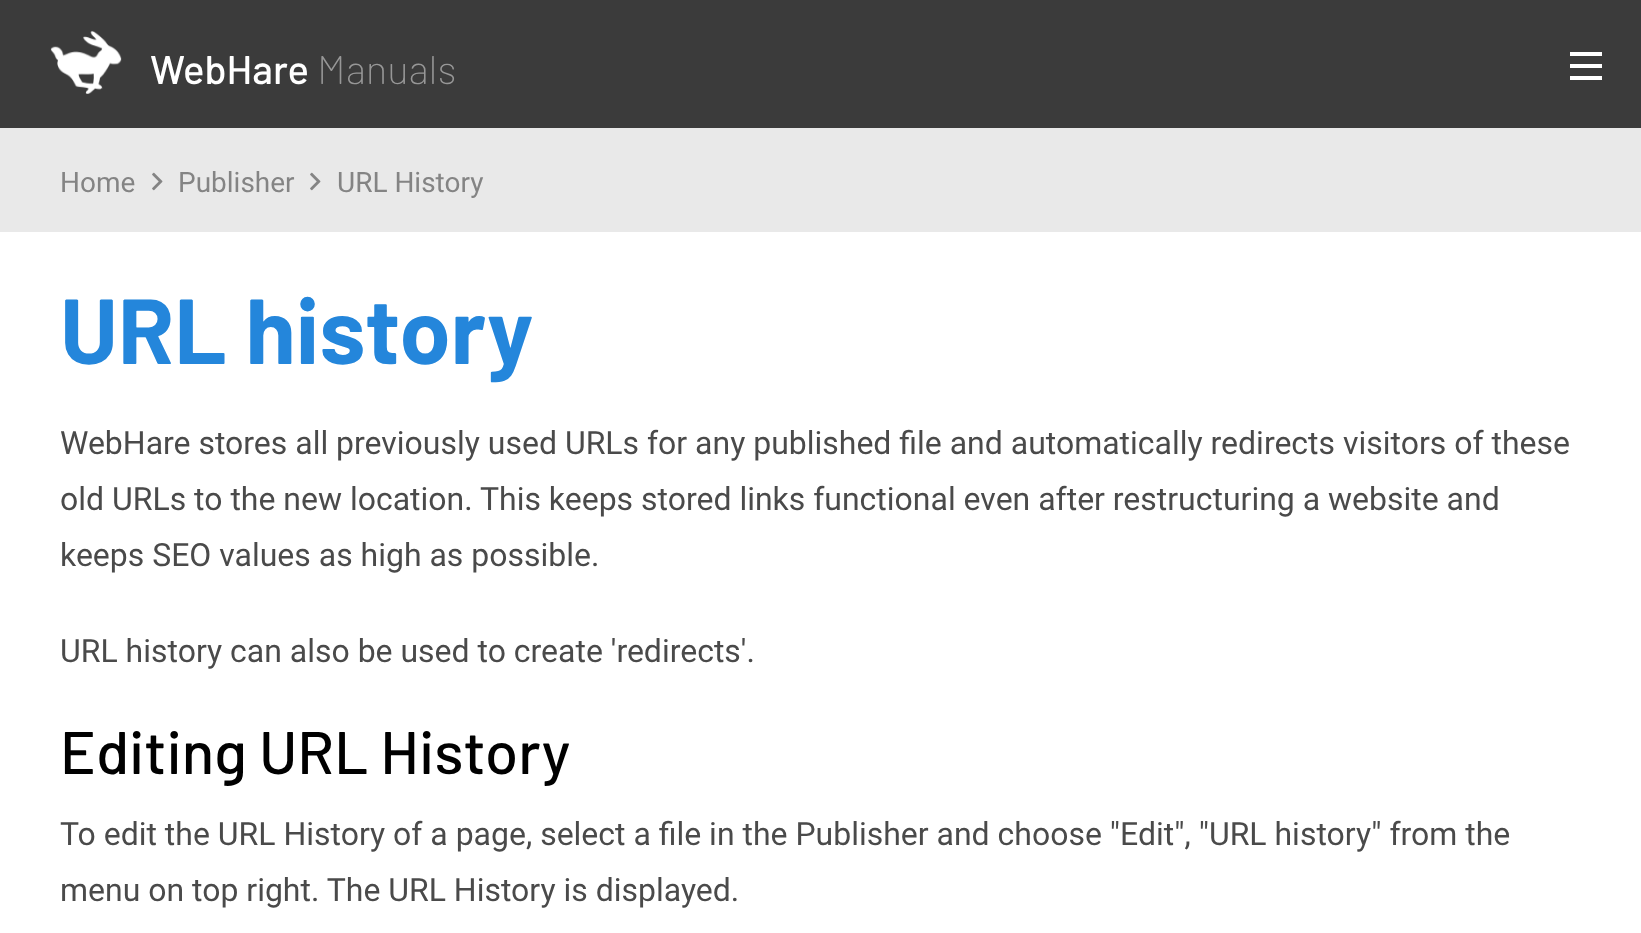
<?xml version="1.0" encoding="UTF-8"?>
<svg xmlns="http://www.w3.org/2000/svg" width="1641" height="933">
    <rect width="100%" height="100%" fill="#E9E9E9"/>
    <rect x="0" y="0" width="1641" height="128" fill="#3B3B3B"/>
    <image x="50" y="30" width="72" height="64" href="img_01.png"/>
    <text x="150" y="84" font-family="Barlow" font-size="40" font-weight="500" fill="#FFFFFF">WebHare</text>
    <text x="317" y="84" font-family="Barlow" font-size="40" font-weight="200" fill="#979797">Manuals</text>
    <rect x="1570" y="64" width="32" height="4" fill="#FFFFFF"/>
    <rect x="1570" y="52" width="32" height="4" fill="#FFFFFF"/>
    <rect x="1570" y="76" width="32" height="4" fill="#FFFFFF"/>
    <text x="60" y="192" font-family="Roboto" font-size="28" fill="#848484">Home</text>
    <image x="152" y="172" width="11" height="19" href="img_02.png"/>
    <text x="178" y="192" font-family="Roboto" font-size="28" fill="#848484">Publisher</text>
    <image x="310" y="172" width="11" height="19" href="img_02.png"/>
    <text x="337" y="192" font-family="Roboto" font-size="28" fill="#848484">URL History</text>
    <rect x="0" y="232" width="1641" height="701" fill="#FFFFFF"/>
    <text x="60" y="364" font-family="Barlow" font-size="92" font-weight="700" fill="#2486DB">URL history</text>
    <text font-family="Roboto" font-size="32" fill="#4A4A4A">
        <tspan x="60" y="454">WebHare stores all previously used URLs for any published file and automatically redirects visitors of these</tspan>
        <tspan x="60" y="510">old URLs to the new location. This keeps stored links functional even after restructuring a website and</tspan>
        <tspan x="60" y="566">keeps SEO values as high as possible.</tspan>
    </text>
    <text x="60" y="662" font-family="Roboto" font-size="32" fill="#4A4A4A">URL history can also be used to create 'redirects'.</text>
    <text x="60" y="774" font-family="Barlow" font-size="60" font-weight="500" fill="#000000">Editing URL History</text>
    <text font-family="Roboto" font-size="32" fill="#4A4A4A">
        <tspan x="60" y="845">To edit the URL History of a page, select a file in the Publisher and choose "Edit", "URL history" from the</tspan>
        <tspan x="60" y="901">menu on top right. The URL History is displayed.</tspan>
    </text>
</svg>
